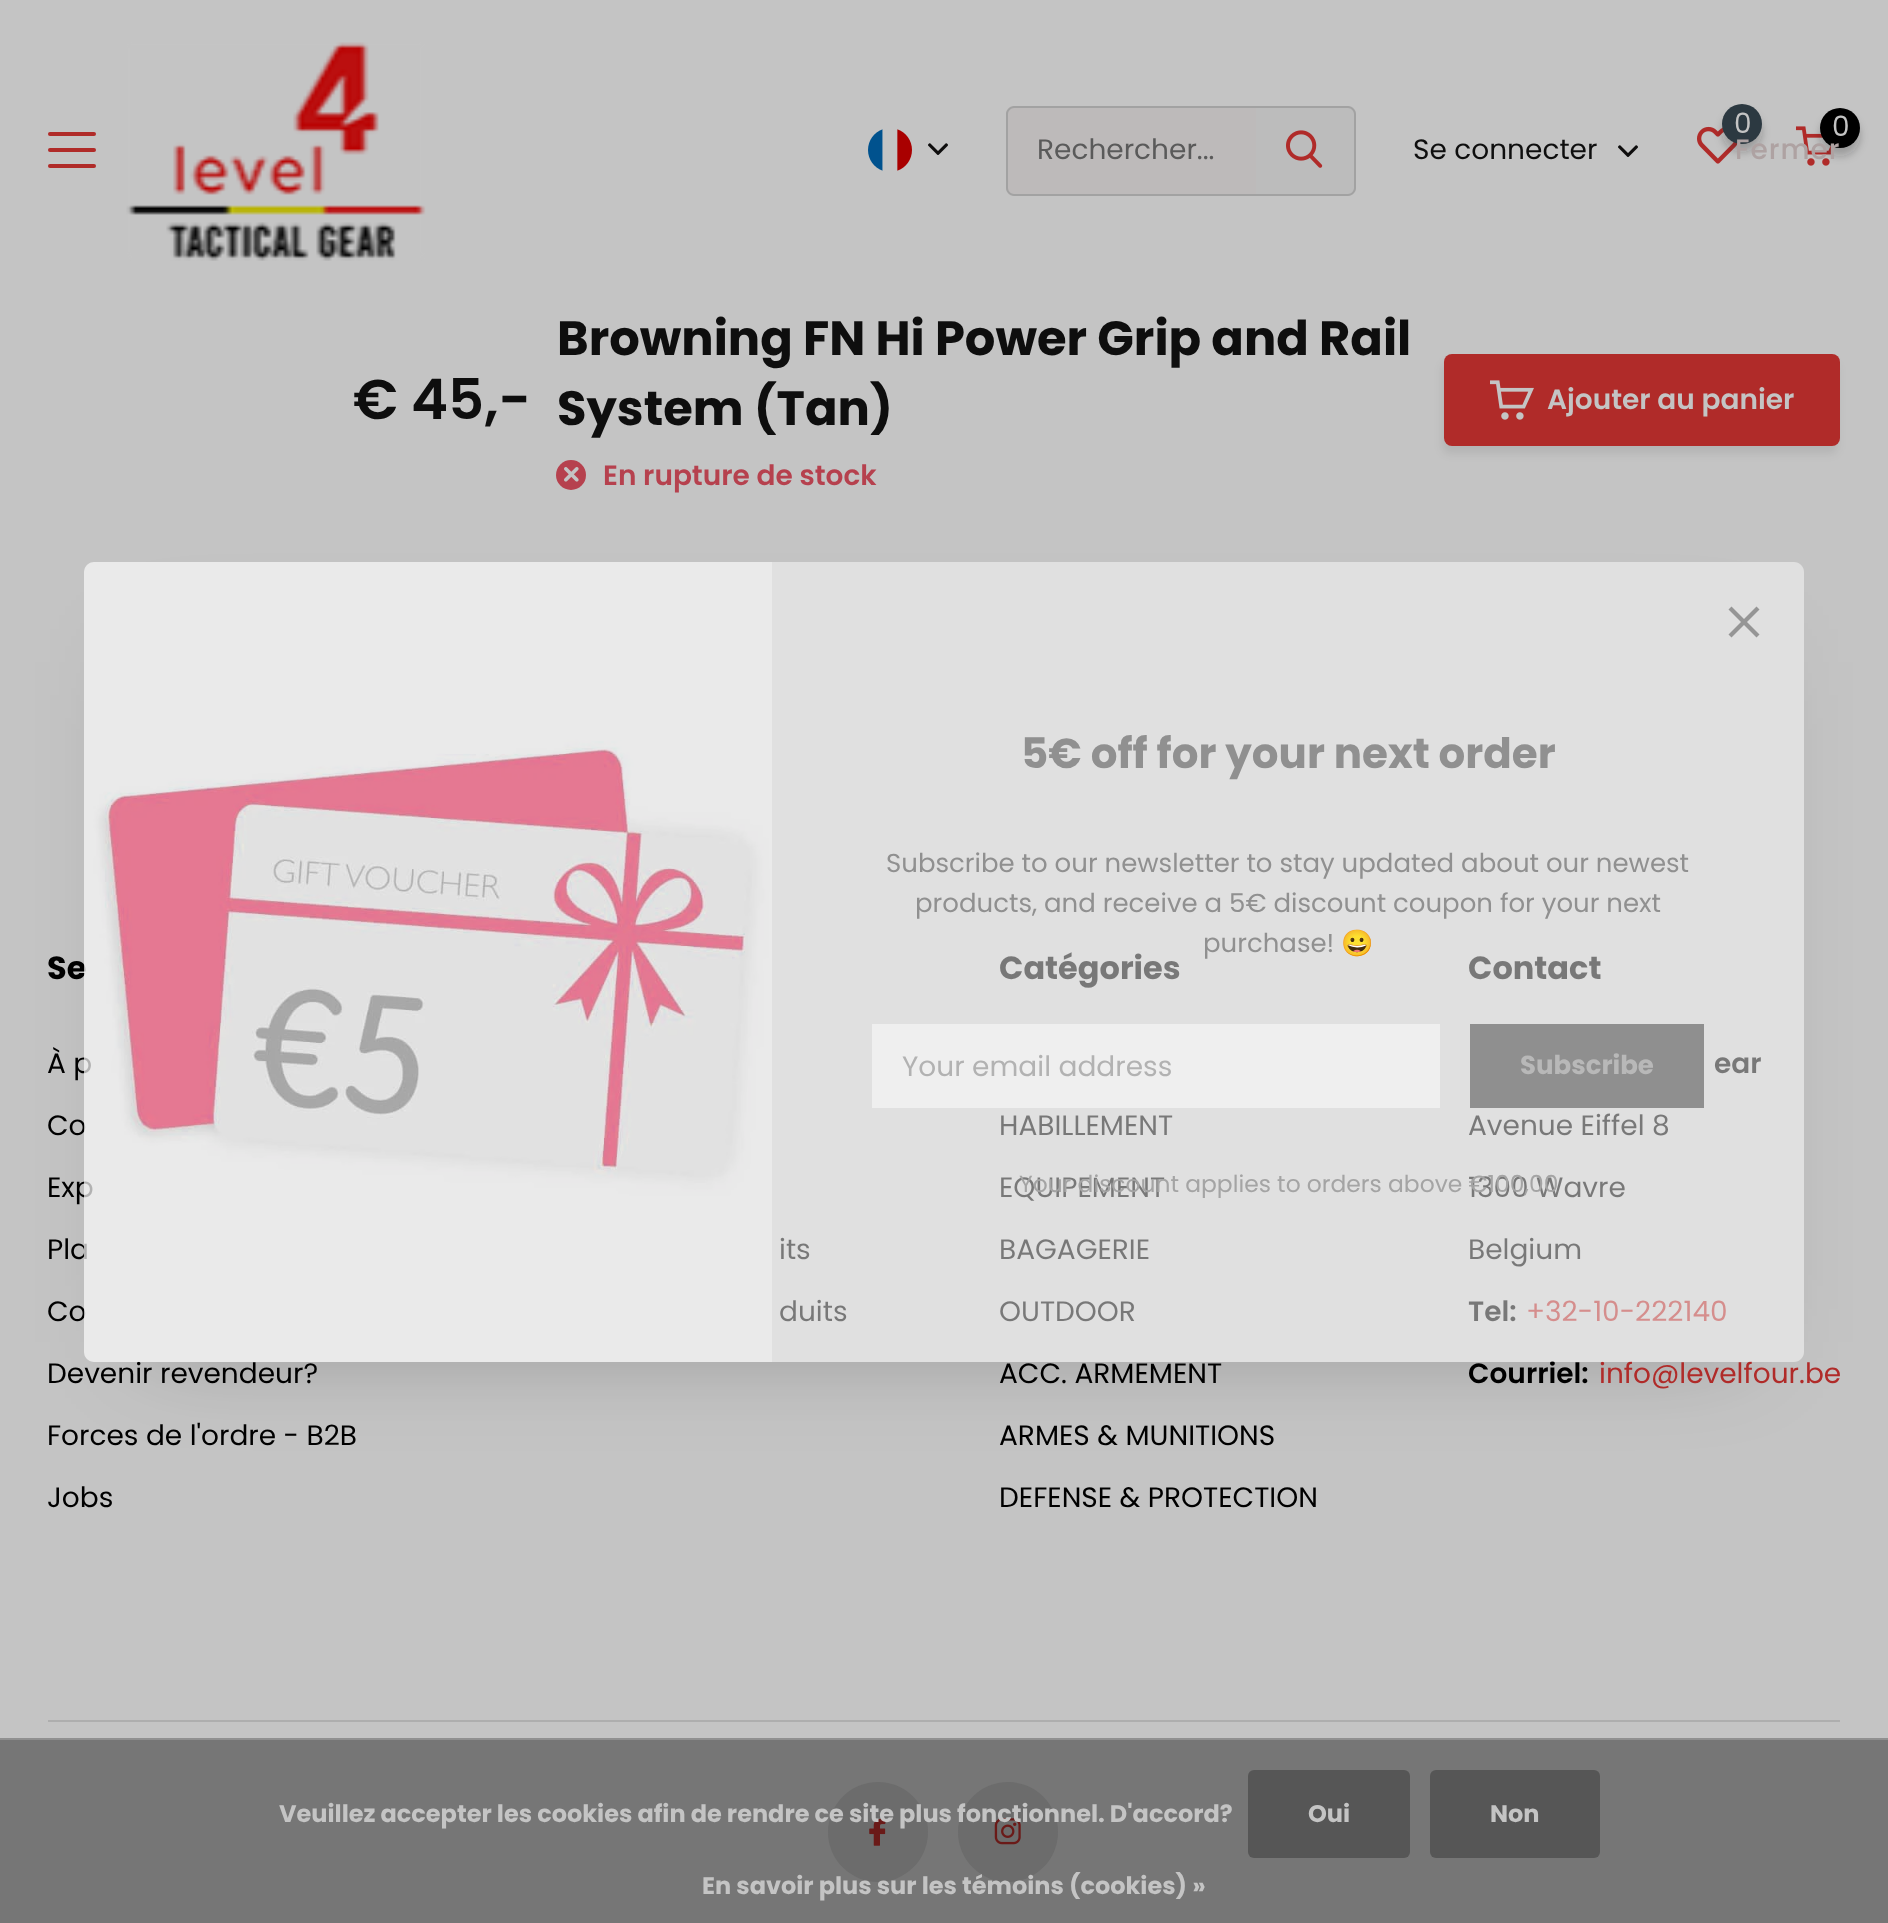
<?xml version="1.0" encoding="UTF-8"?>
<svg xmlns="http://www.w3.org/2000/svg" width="1888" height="1923">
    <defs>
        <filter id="blur1" x="-50%" y="-200%" width="200%" height="500%"><feGaussianBlur stdDeviation="4"/></filter>
        <clipPath id="clip1"><path d="M 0 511 H 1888 V 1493 H 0 Z M 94 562 H 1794 C 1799.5 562 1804 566.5 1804 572 V 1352 C 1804 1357.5 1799.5 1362 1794 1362 H 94 C 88.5 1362 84 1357.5 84 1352 V 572 C 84 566.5 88.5 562 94 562 Z" clip-rule="evenodd"/></clipPath>
        <filter id="blur2" x="-50%" y="-200%" width="200%" height="500%"><feGaussianBlur stdDeviation="50"/></filter>
    </defs>
    <rect width="100%" height="100%" fill="#C4C4C4"/>
    <rect x="0" y="1740" width="1888" height="183" fill="#767676"/>
    <rect x="48" y="132" width="48" height="4" rx="2" fill="#B02B29"/>
    <rect x="48" y="148" width="48" height="4" rx="2" fill="#B02B29"/>
    <rect x="48" y="164" width="48" height="4" rx="2" fill="#B02B29"/>
    <image x="126" y="42" width="300" height="219" href="img_01.png"/>
    <image x="1697" y="126" width="41" height="38" href="img_02.png"/>
    <rect x="1722" y="112" width="40" height="40" rx="20" fill="#1F1F25" fill-opacity="0.25" filter="url(#blur1)"/>
    <circle cx="1742" cy="124" r="20" fill="#2C3941"/>
    <text x="1734" y="133" font-family="Poppins" font-size="28" fill="#C4C4C4">0</text>
    <image x="1796" y="126" width="39" height="40" href="img_03.png"/>
    <rect x="1820" y="116" width="40" height="40" rx="20" fill="#1F1F25" fill-opacity="0.25" filter="url(#blur1)"/>
    <circle cx="1840" cy="128" r="20" fill="#000000"/>
    <text x="1832" y="136" font-family="Poppins" font-size="28" fill="#C4C4C4">0</text>
    <image x="868" y="129" width="44" height="42" href="img_04.png"/>
    <image x="928" y="143" width="20" height="12" href="img_05.png"/>
    <path d="M 1014 106 H 1256 V 196 H 1014 C 1009.5 196 1006 192.5 1006 188 V 114 C 1006 109.5 1009.5 106 1014 106 Z" fill="#BDBABA"/>
    <path d="M 1014 106 H 1256 V 196 H 1014 C 1010 196 1006 192 1006 188 V 114 C 1006 110 1010 106 1014 106 Z M 1014 108 H 1256 V 194 H 1014 C 1011 194 1008 191 1008 188 V 114 C 1008 111 1011 108 1014 108 Z" fill="#A2A2A2" fill-rule="evenodd"/>
    <text x="1037" y="159" font-family="Poppins" font-size="28" fill="#5A5A5A">Rechercher...</text>
    <path d="M 1256 106 H 1348 C 1352.5 106 1356 109.5 1356 114 V 188 C 1356 192.5 1352.5 196 1348 196 H 1256 Z" fill="#BCBCBC"/>
    <path d="M 1256 106 H 1348 C 1352 106 1356 110 1356 114 V 188 C 1356 192 1352 196 1348 196 H 1256 Z M 1256 108 H 1348 C 1351 108 1354 111 1354 114 V 188 C 1354 191 1351 194 1348 194 H 1256 Z" fill="#A2A2A2" fill-rule="evenodd"/>
    <image x="1286" y="130" width="37" height="38" href="img_06.png"/>
    <text x="1413" y="159" font-family="Poppins" font-size="28" fill="#0E0E0E">Se connecter</text>
    <image x="1618" y="145" width="20" height="12" href="img_05.png"/>
    <text x="1735" y="159" font-family="Poppins" font-size="28" font-weight="500" letter-spacing="1" fill="#AEA2A2">Fermer</text>
    <text x="353" y="419" font-family="Poppins" font-size="56" font-weight="600" fill="#0E0E0E">€ 45,-</text>
    <text font-family="Poppins" font-size="48" font-weight="700" fill="#0E0E0E">
        <tspan x="557" y="355">Browning FN Hi Power Grip and Rail</tspan>
        <tspan x="557" y="425">System (Tan)</tspan>
    </text>
    <circle cx="571" cy="475" r="15" fill="#B6414E"/>
    <image x="564" y="467" width="15" height="15" href="img_07.png"/>
    <text x="603" y="485" font-family="Poppins" font-size="28" font-weight="600" fill="#B6414E">En rupture de stock</text>
    <rect x="1442" y="362" width="396" height="92" rx="8" fill="#000000" fill-opacity="0.08" filter="url(#blur1)"/>
    <rect x="1444" y="354" width="396" height="92" rx="8" fill="#B02B29"/>
    <image x="1490" y="380" width="44" height="40" href="img_08.png"/>
    <text x="1547" y="409" font-family="Poppins" font-size="28" font-weight="600" fill="#C4C4C4">Ajouter au panier</text>
    <g clip-path="url(#clip1)">
        <rect x="144" y="662" width="1600" height="680" fill="#000000" fill-opacity="0.28" filter="url(#blur2)"/>
    </g>
    <text x="47" y="979" font-family="Poppins" font-size="32" font-weight="700" fill="#000000">Se</text>
    <text x="47" y="1073" font-family="Poppins" font-size="28" fill="#000000">À p</text>
    <text x="47" y="1135" font-family="Poppins" font-size="28" fill="#000000">Co</text>
    <text x="47" y="1197" font-family="Poppins" font-size="28" fill="#000000">Exp</text>
    <text x="47" y="1259" font-family="Poppins" font-size="28" fill="#000000">Pla</text>
    <text x="47" y="1321" font-family="Poppins" font-size="28" fill="#000000">Co</text>
    <text x="47" y="1383" font-family="Poppins" font-size="28" fill="#000000">Devenir revendeur?</text>
    <path d="M 94 562 H 772 V 1362 H 94 C 88.5 1362 84 1357.5 84 1352 V 572 C 84 566.5 88.5 562 94 562 Z" fill="#EEEEEE" fill-opacity="0.47"/>
    <image x="84" y="562" width="688" height="800" href="img_09.png"/>
    <text x="779" y="1259" font-family="Poppins" font-size="28" fill="#000000">its</text>
    <text x="779" y="1321" font-family="Poppins" font-size="28" fill="#000000">duits</text>
    <text x="999" y="979" font-family="Poppins" font-size="32" font-weight="700" fill="#000000">Catégories</text>
    <text x="999" y="1135" font-family="Poppins" font-size="28" fill="#000000">HABILLEMENT</text>
    <text x="999" y="1197" font-family="Poppins" font-size="28" fill="#000000">EQUIPEMENT</text>
    <text x="999" y="1259" font-family="Poppins" font-size="28" fill="#000000">BAGAGERIE</text>
    <text x="999" y="1321" font-family="Poppins" font-size="28" fill="#000000">OUTDOOR</text>
    <text x="1468" y="979" font-family="Poppins" font-size="32" font-weight="700" fill="#000000">Contact</text>
    <text x="1714" y="1073" font-family="Poppins" font-size="28" font-weight="600" fill="#000000">ear</text>
    <text x="1468" y="1135" font-family="Poppins" font-size="28" fill="#000000">Avenue Eiffel 8</text>
    <text x="1468" y="1197" font-family="Poppins" font-size="28" fill="#000000">1300 Wavre</text>
    <text x="1468" y="1259" font-family="Poppins" font-size="28" fill="#000000">Belgium</text>
    <text x="1468" y="1321" font-family="Poppins" font-size="28" font-weight="600" fill="#000000">Tel:</text>
    <text x="1526" y="1321" font-family="Poppins" font-size="28" fill="#B02B29">+32-10-222140</text>
    <text x="1468" y="1383" font-family="Poppins" font-size="28" font-weight="600" fill="#000000">Courriel:</text>
    <text x="1599" y="1383" font-family="Poppins" font-size="28" fill="#B02B29">info@levelfour.be</text>
    <path d="M 772 562 H 1794 C 1799.5 562 1804 566.5 1804 572 V 1352 C 1804 1357.5 1799.5 1362 1794 1362 H 772 Z" fill="#FFFFFF" fill-opacity="0.47"/>
    <path d="M 1731.5 606.5 L 1759.5 634.5 L 1756.5 637.5 L 1728.5 609.5 Z" fill="#959595"/>
    <path d="M 1728.5 634.5 L 1756.5 606.5 L 1759.5 609.5 L 1731.5 637.5 Z" fill="#959595"/>
    <text x="1021" y="768" font-family="Poppins" font-size="42" font-weight="700" fill="#909090">5€ off for your next order</text>
    <text x="886" y="872" font-family="Poppins" font-size="26" fill="#909090">Subscribe to our newsletter to stay updated about our newest</text>
    <text x="915" y="912" font-family="Poppins" font-size="26" fill="#909090">products, and receive a 5€ discount coupon for your next</text>
    <text x="1203" y="952" font-family="Poppins" font-size="26" fill="#909090">purchase!</text>
    <text x="1341" y="952" font-family="Noto Color Emoji" font-size="26" fill="#909090">😀</text>
    <rect x="872" y="1024" width="568" height="84" fill="#FFFFFF" fill-opacity="0.47"/>
    <text x="902" y="1076" font-family="Poppins" font-size="28" fill="#B2B2B2">Your email address</text>
    <rect x="1470" y="1024" width="234" height="84" fill="#333333" fill-opacity="0.47"/>
    <text x="1520" y="1074" font-family="Poppins" font-size="26" font-weight="700" fill="#B8B8B8">Subscribe</text>
    <text x="1019" y="1192" font-family="Poppins" font-size="23.4" fill="#A4A4A4">Your discount applies to orders above €100,00</text>
    <rect x="48" y="1720" width="1792" height="2" fill="#AEAEAE"/>
    <text x="47" y="1445" font-family="Poppins" font-size="28" fill="#000000">Forces de l'ordre - B2B</text>
    <text x="47" y="1507" font-family="Poppins" font-size="28" fill="#000000">Jobs</text>
    <text x="999" y="1383" font-family="Poppins" font-size="28" fill="#000000">ACC. ARMEMENT</text>
    <text x="999" y="1445" font-family="Poppins" font-size="28" fill="#000000">ARMES &amp; MUNITIONS</text>
    <text x="999" y="1507" font-family="Poppins" font-size="28" fill="#000000">DEFENSE &amp; PROTECTION</text>
    <circle cx="878" cy="1832" r="50" fill="#6C6C6C"/>
    <image x="869" y="1818" width="17" height="28" href="img_10.png"/>
    <circle cx="1008" cy="1832" r="50" fill="#6C6C6C"/>
    <image x="994" y="1818" width="27" height="27" href="img_11.png"/>
    <rect x="0" y="1738" width="1888" height="2" fill="#909090"/>
    <text x="279" y="1822" font-family="Poppins" font-size="24" font-weight="700" fill="#C4C4C4">Veuillez accepter les cookies afin de rendre ce site plus fonctionnel. D'accord?</text>
    <rect x="1248" y="1770" width="162" height="88" rx="6" fill="#565656"/>
    <text x="1308" y="1822" font-family="Poppins" font-size="24" font-weight="700" fill="#C4C4C4">Oui</text>
    <rect x="1430" y="1770" width="170" height="88" rx="6" fill="#565656"/>
    <text x="1490" y="1822" font-family="Poppins" font-size="24" font-weight="700" fill="#C4C4C4">Non</text>
    <text x="702" y="1894" font-family="Poppins" font-size="24" font-weight="700" fill="#C4C4C4">En savoir plus sur les témoins (cookies) »</text>
</svg>
